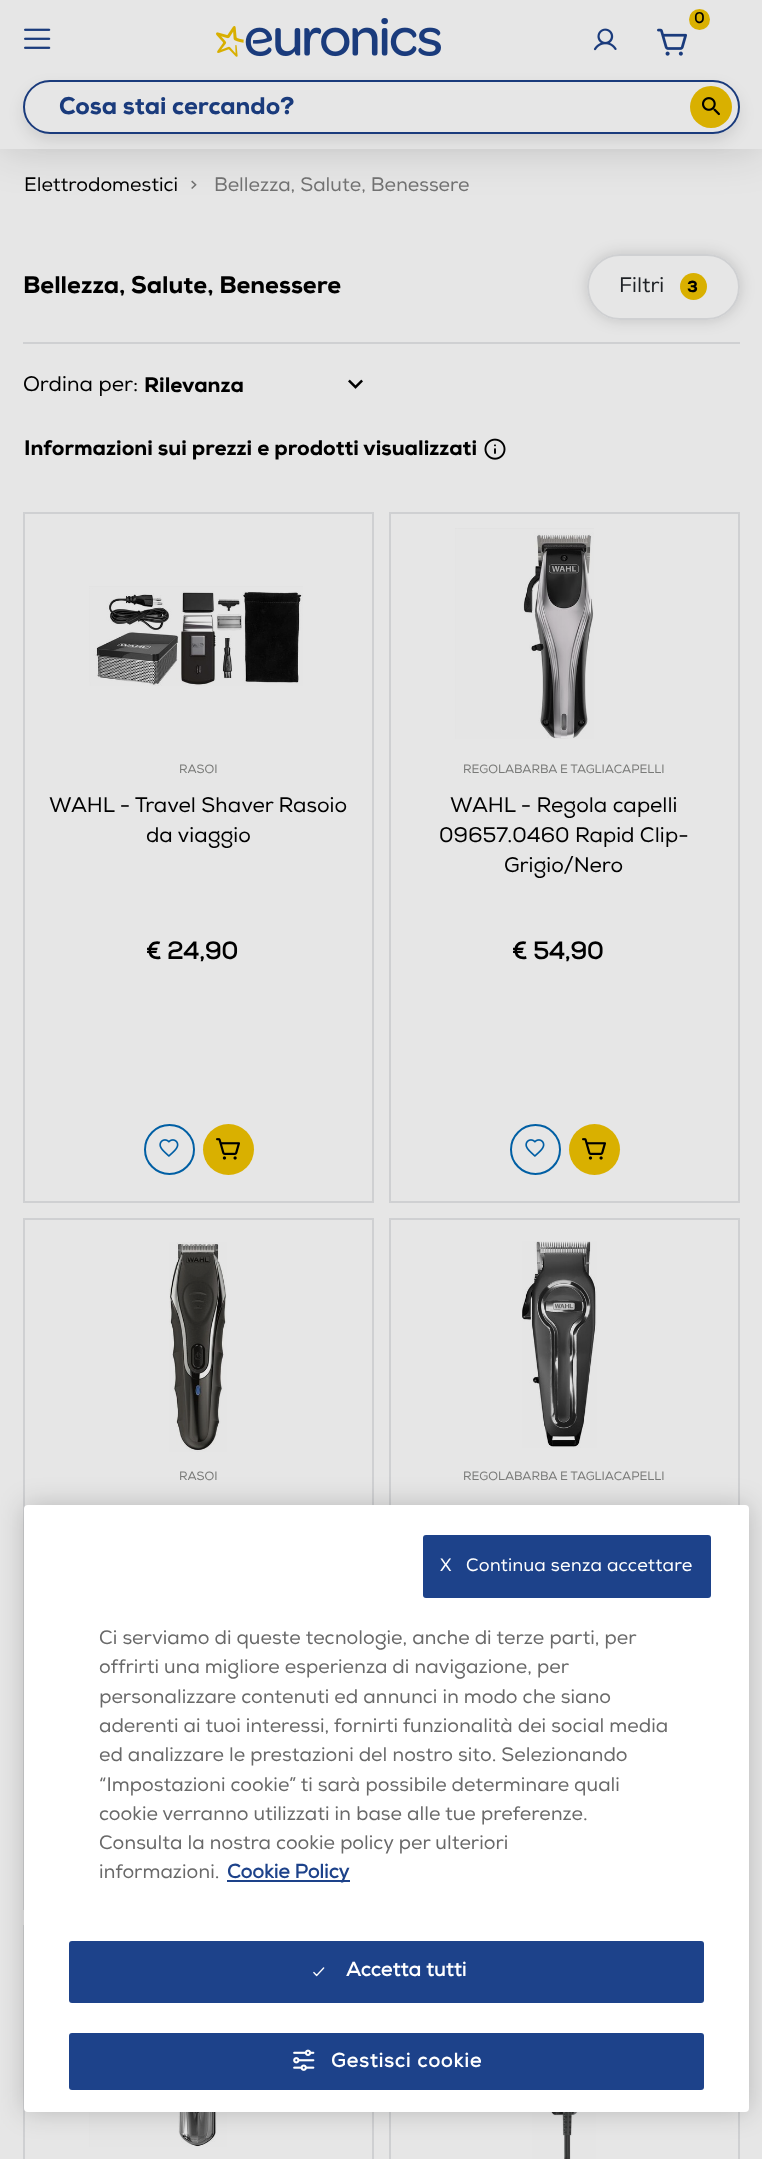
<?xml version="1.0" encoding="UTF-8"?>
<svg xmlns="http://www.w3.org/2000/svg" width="762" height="2159">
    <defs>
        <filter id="blur1" x="-50%" y="-200%" width="200%" height="500%"><feGaussianBlur stdDeviation="22.5"/></filter>
        <clipPath id="clip1"><path d="M 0 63 H 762 V 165 H 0 Z M 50 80 H 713 C 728 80 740 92 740 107 C 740 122 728 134 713 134 H 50 C 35 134 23 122 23 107 C 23 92 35 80 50 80 Z" clip-rule="evenodd"/></clipPath>
        <filter id="blur2" x="-50%" y="-200%" width="200%" height="500%"><feGaussianBlur stdDeviation="7.5"/></filter>
        <clipPath id="clip2"><path d="M 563 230 H 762 V 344 H 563 Z M 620 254 H 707 C 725 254 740 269 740 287 C 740 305 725 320 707 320 H 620 C 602 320 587 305 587 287 C 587 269 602 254 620 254 Z" clip-rule="evenodd"/></clipPath>
        <filter id="blur3" x="-50%" y="-200%" width="200%" height="500%"><feGaussianBlur stdDeviation="13.5"/></filter>
    </defs>
    <rect width="100%" height="100%" fill="#E6E6E6"/>
    <rect x="0" y="0" width="762" height="149" fill="#000000" fill-opacity="0.16" filter="url(#blur1)"/>
    <rect x="0" y="0" width="762" height="149" fill="#E6E6E6"/>
    <image x="24" y="28" width="27" height="21" href="img_01.png"/>
    <image x="216" y="18" width="225" height="39" href="img_02.png"/>
    <circle cx="699.5" cy="19.5" r="10.5" fill="#D9B000"/>
    <text x="694" y="23" font-family="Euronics" font-size="15" font-weight="700" fill="#000000">0</text>
    <image x="657" y="28" width="30" height="28" href="img_03.png"/>
    <image x="593" y="28" width="24" height="23" href="img_04.png"/>
    <g clip-path="url(#clip1)">
        <rect x="23" y="87" width="717" height="54" rx="27" fill="#000000" fill-opacity="0.1" filter="url(#blur2)"/>
    </g>
    <rect x="24" y="81" width="715" height="52" rx="26" fill="none" stroke="#1A3B7C" stroke-width="2"/>
    <text x="59" y="114" font-family="Euronics" font-size="24" font-weight="900" fill="#1A3B7C">Cosa stai cercando?</text>
    <circle cx="711" cy="107" r="21" fill="#D9B000"/>
    <image x="702" y="97" width="18" height="19" href="img_05.png"/>
    <text x="24" y="191" font-family="Euronics" font-size="19.5" fill="#000000">Elettrodomestici</text>
    <text x="190" y="191" font-family="Euronics" font-size="19.5" fill="#717171">&gt;</text>
    <text x="214" y="191" font-family="Euronics" font-size="19.5" fill="#717171">Bellezza, Salute, Benessere</text>
    <rect x="23" y="342" width="717" height="2" fill="#CFD0D2"/>
    <text x="23" y="293" font-family="Euronics" font-size="24" font-weight="900" fill="#000000">Bellezza, Salute, Benessere</text>
    <text x="23" y="391" font-family="Euronics" font-size="21" fill="#000000">Ordina per:</text>
    <image x="348" y="379" width="15" height="10" href="img_06.png"/>
    <text x="144" y="392" font-family="Euronics" font-size="21" font-weight="900" fill="#000000">Rilevanza</text>
    <g clip-path="url(#clip2)">
        <rect x="587" y="254" width="153" height="66" rx="33" fill="#000000" fill-opacity="0.16" filter="url(#blur2)"/>
    </g>
    <rect x="588" y="255" width="151" height="64" rx="32" fill="none" stroke="#CFD0D2" stroke-width="2"/>
    <text x="619" y="292" font-family="Euronics" font-size="21" fill="#1E2125">Filtri</text>
    <circle cx="693.5" cy="286.5" r="13.5" fill="#D9B000"/>
    <text x="687" y="292" font-family="Euronics" font-size="16" font-weight="900" fill="#000000">3</text>
    <text x="24" y="455" font-family="Euronics" font-size="21" font-weight="900" fill="#000000">Informazioni sui prezzi e prodotti visualizzati</text>
    <image x="484" y="438" width="22" height="22" href="img_07.png"/>
    <rect x="24" y="513" width="349" height="689" fill="none" stroke="#CFD0D2" stroke-width="2"/>
    <image x="89" y="586" width="214" height="100" href="img_08.png"/>
    <text x="179" y="773" font-family="Euronics" font-size="12" fill="#797A78">RASOI</text>
    <text x="49" y="812" font-family="Euronics" font-size="21" fill="#000000">WAHL - Travel Shaver Rasoio</text>
    <text x="146" y="842" font-family="Euronics" font-size="21" fill="#000000">da viaggio</text>
    <text x="146" y="959" font-family="Euronics" font-size="24" font-weight="700" fill="#000000">€ 24,90</text>
    <circle cx="169.5" cy="1149.5" r="24.5" fill="none" stroke="#005FA4" stroke-width="2"/>
    <image x="159" y="1139" width="20" height="18" href="img_09.png"/>
    <circle cx="228.5" cy="1149.5" r="25.5" fill="#D9B000"/>
    <image x="216" y="1138" width="24" height="22" href="img_10.png"/>
    <rect x="390" y="513" width="349" height="689" fill="none" stroke="#CFD0D2" stroke-width="2"/>
    <image x="455" y="528" width="139" height="211" href="img_11.png"/>
    <text x="463" y="773" font-family="Euronics" font-size="12" fill="#797A78">REGOLABARBA E TAGLIACAPELLI</text>
    <text x="450" y="812" font-family="Euronics" font-size="21" fill="#000000">WAHL - Regola capelli</text>
    <text x="439" y="842" font-family="Euronics" font-size="21" fill="#000000">09657.0460 Rapid Clip-</text>
    <text x="504" y="872" font-family="Euronics" font-size="21" fill="#000000">Grigio/Nero</text>
    <text x="512" y="959" font-family="Euronics" font-size="24" font-weight="700" fill="#000000">€ 54,90</text>
    <circle cx="535.5" cy="1149.5" r="24.5" fill="none" stroke="#005FA4" stroke-width="2"/>
    <image x="525" y="1139" width="20" height="18" href="img_09.png"/>
    <circle cx="594.5" cy="1149.5" r="25.5" fill="#D9B000"/>
    <image x="582" y="1138" width="24" height="22" href="img_10.png"/>
    <rect x="24" y="1219" width="349" height="690" fill="none" stroke="#CFD0D2" stroke-width="2"/>
    <image x="169" y="1242" width="58" height="210" href="img_12.png"/>
    <text x="179" y="1480" font-family="Euronics" font-size="12" fill="#797A78">RASOI</text>
    <rect x="390" y="1219" width="349" height="690" fill="none" stroke="#CFD0D2" stroke-width="2"/>
    <image x="522" y="1241" width="75" height="207" href="img_13.png"/>
    <text x="463" y="1480" font-family="Euronics" font-size="12" fill="#797A78">REGOLABARBA E TAGLIACAPELLI</text>
    <rect x="24" y="1926" width="349" height="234" fill="none" stroke="#CFD0D2" stroke-width="2"/>
    <image x="89" y="2112" width="138" height="35" href="img_14.png"/>
    <rect x="390" y="1926" width="349" height="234" fill="none" stroke="#CFD0D2" stroke-width="2"/>
    <image x="532" y="2112" width="64" height="47" href="img_15.png"/>
    <rect x="24" y="1505" width="725" height="607" rx="4" fill="#000000" fill-opacity="0.2" filter="url(#blur3)"/>
    <rect x="24" y="1505" width="725" height="607" rx="4" fill="#FFFFFF"/>
    <rect x="423" y="1535" width="288" height="63" rx="3" fill="#1D428A"/>
    <text x="440" y="1571" font-family="Euronics" font-size="18" letter-spacing="0.2" fill="#FFFFFF" xml:space="preserve">X   Continua senza accettare</text>
    <text font-family="Euronics" font-size="19.5" fill="#696969">
        <tspan x="99" y="1644">Ci serviamo di queste tecnologie, anche di terze parti, per</tspan>
        <tspan x="99" y="1673">offrirti una migliore esperienza di navigazione, per</tspan>
        <tspan x="99" y="1703">personalizzare contenuti ed annunci in modo che siano</tspan>
        <tspan x="99" y="1732">aderenti ai tuoi interessi, fornirti funzionalità dei social media</tspan>
        <tspan x="99" y="1761">ed analizzare le prestazioni del nostro sito. Selezionando</tspan>
        <tspan x="99" y="1791">“Impostazioni cookie” ti sarà possibile determinare quali</tspan>
        <tspan x="99" y="1820">cookie verranno utilizzati in base alle tue preferenze.</tspan>
        <tspan x="99" y="1849">Consulta la nostra cookie policy per ulteriori</tspan>
        <tspan x="99" y="1878">informazioni.</tspan>
    </text>
    <rect x="227" y="1880" width="123" height="2" fill="#1D428A"/>
    <text x="227" y="1878" font-family="Euronics" font-size="19.5" font-weight="700" fill="#1D428A">Cookie Policy</text>
    <rect x="69" y="1941" width="635" height="62" rx="3" fill="#1D428A"/>
    <image x="313" y="1967" width="12" height="10" href="img_16.png"/>
    <text x="346" y="1976" font-family="Euronics" font-size="19.5" font-weight="700" letter-spacing="0.25" fill="#FFFFFF">Accetta tutti</text>
    <rect x="69" y="2033" width="635" height="57" rx="3" fill="#1D428A"/>
    <image x="293" y="2049" width="22" height="22" href="img_17.png"/>
    <text x="331" y="2067" font-family="Euronics" font-size="19.5" font-weight="700" letter-spacing="1" fill="#FFFFFF">Gestisci cookie</text>
</svg>
